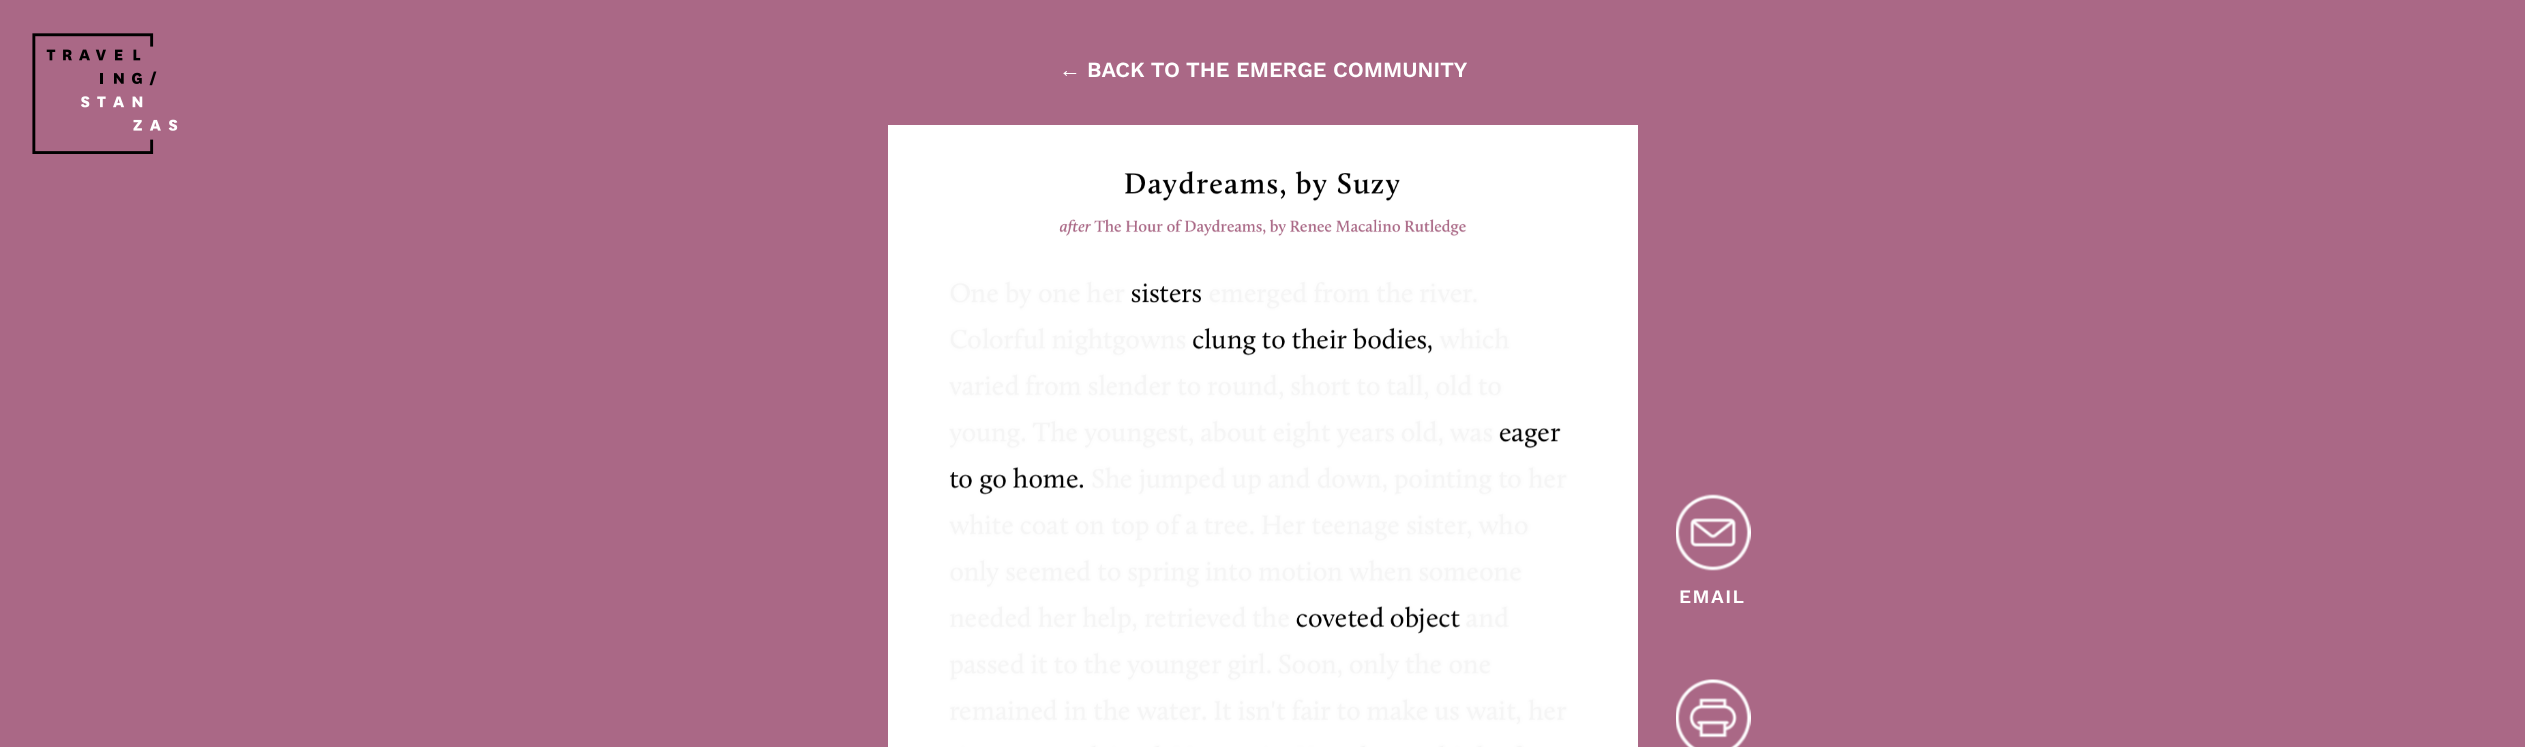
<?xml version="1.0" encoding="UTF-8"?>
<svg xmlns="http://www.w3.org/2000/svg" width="2525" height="747">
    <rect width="100%" height="100%" fill="#AA6886"/>
    <image x="32" y="33" width="146" height="121" href="img_01.png"/>
    <text x="1059" y="77" font-family="Liberation Sans" font-size="21.6" font-weight="700" fill="#FFFFFF">←</text>
    <text x="1087" y="77" font-family="Work Sans" font-size="21.6" font-weight="600" fill="#FFFFFF">BACK TO THE EMERGE COMMUNITY</text>
    <image x="888" y="125" width="750" height="622" href="img_02.png"/>
    <image x="1676" y="494" width="75" height="77" href="img_03.png"/>
    <text x="1679" y="603" font-family="Work Sans" font-size="19" font-weight="600" letter-spacing="1.5" fill="#FFFFFF">EMAIL</text>
    <image x="1676" y="679" width="75" height="68" href="img_04.png"/>
</svg>
